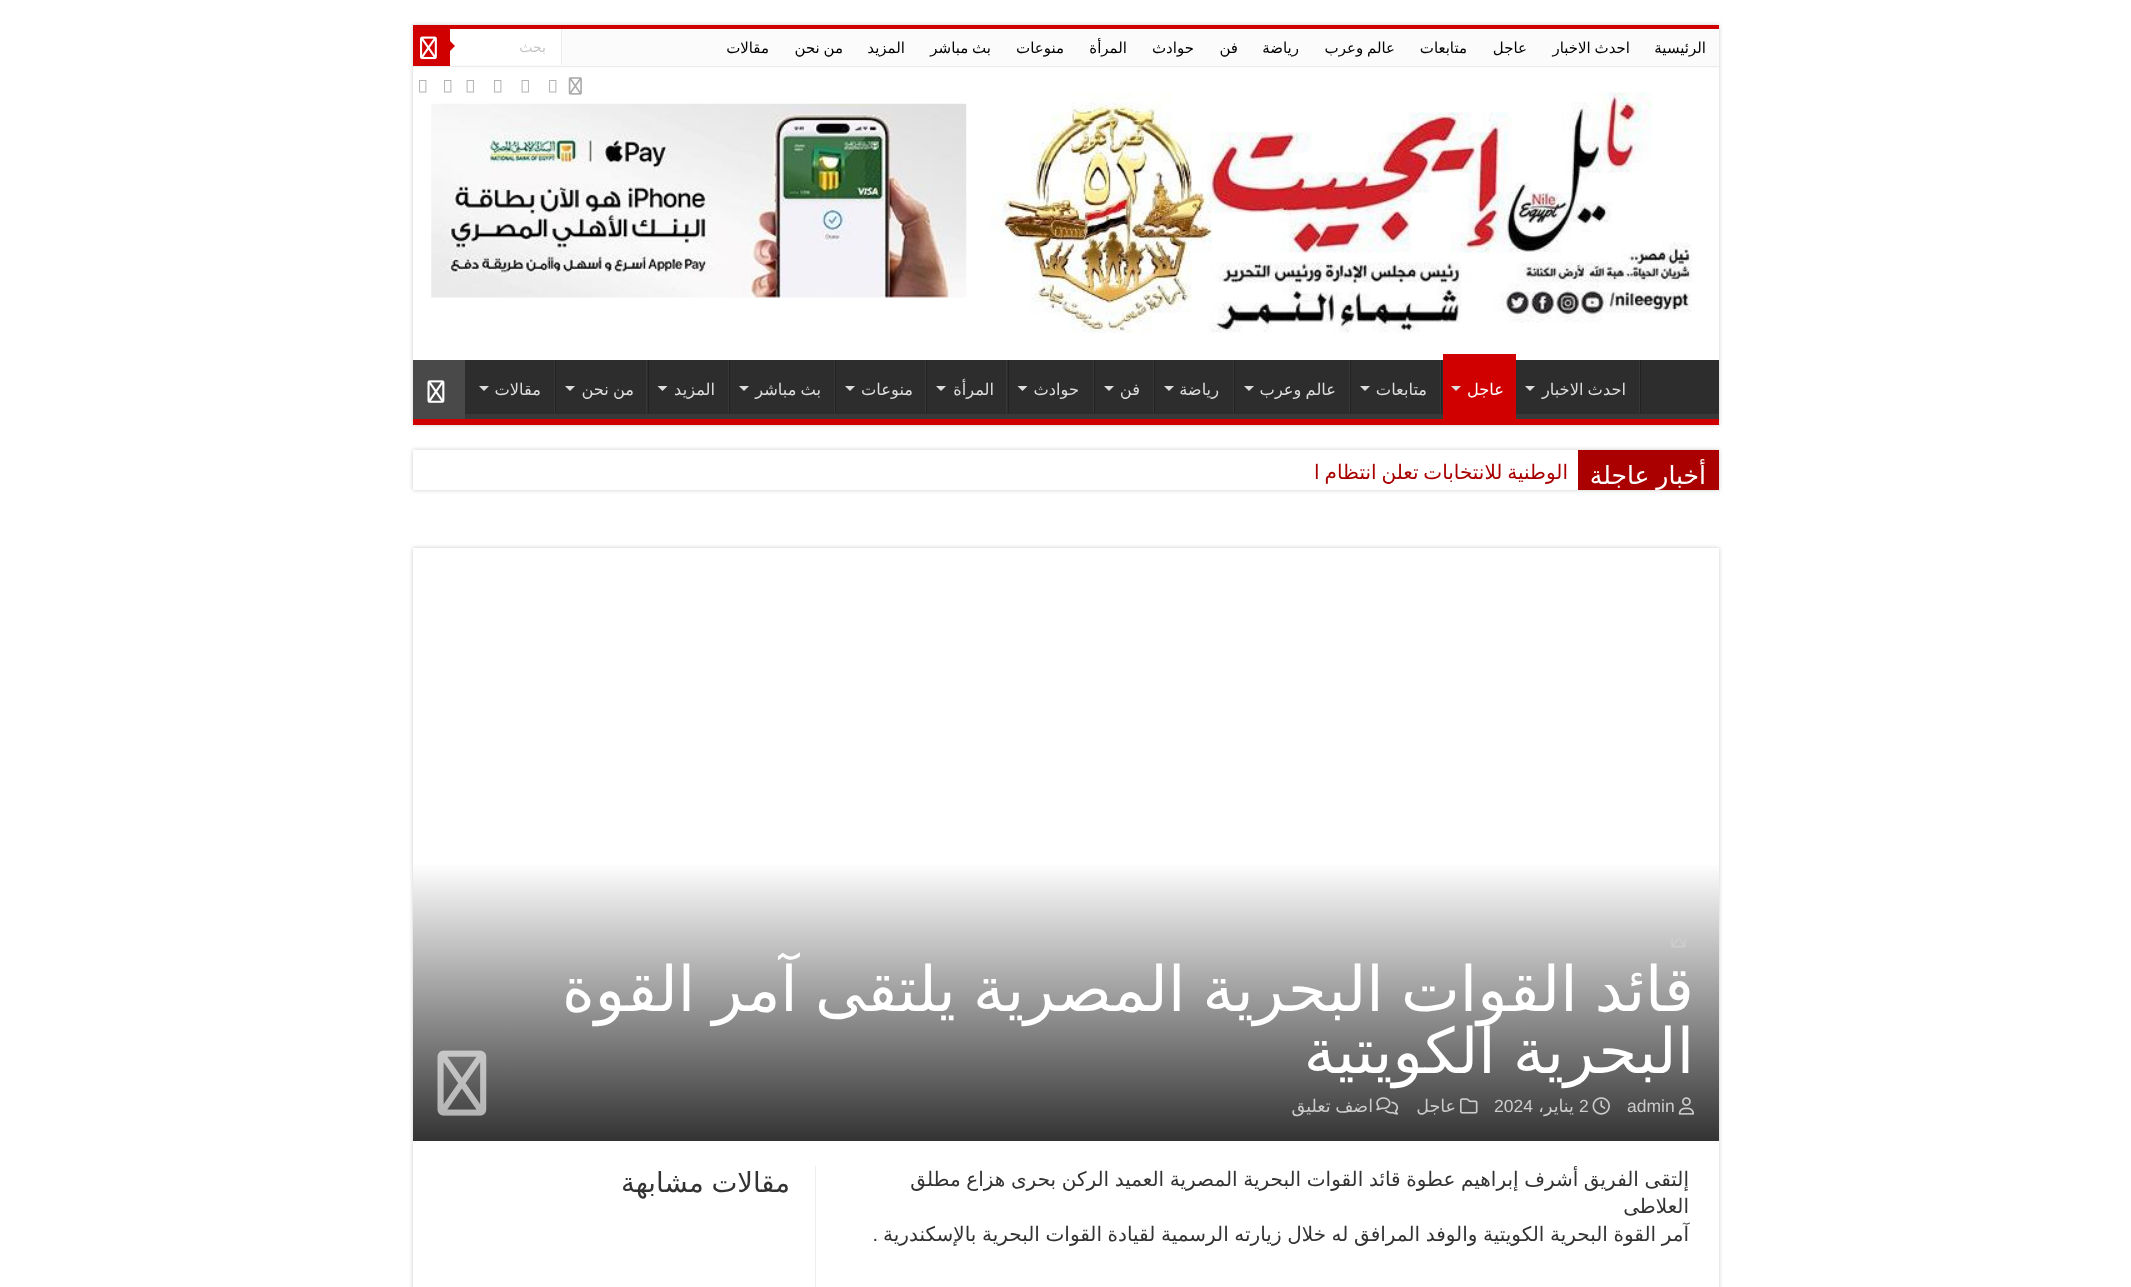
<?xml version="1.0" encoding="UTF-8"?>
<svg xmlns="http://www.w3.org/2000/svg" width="2131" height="1287">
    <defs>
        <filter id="blur1" x="-50%" y="-200%" width="200%" height="500%"><feGaussianBlur stdDeviation="2"/></filter>
        <clipPath id="clip1"><rect x="413" y="360" width="1306" height="59"/></clipPath>
        <linearGradient id="g1" gradientUnits="userSpaceOnUse" x1="1066" y1="862" x2="1066" y2="1141"><stop offset="0" stop-color="#FFFFFF"/><stop offset="1" stop-color="#333333"/></linearGradient>
    </defs>
    <rect width="100%" height="100%" fill="#FFFFFF"/>
    <rect x="413" y="25" width="1306" height="400" fill="#CACACA" filter="url(#blur1)"/>
    <rect x="413" y="68" width="1306" height="292" fill="#FFFFFF"/>
    <rect x="413" y="25" width="1306" height="4" fill="#D10000"/>
    <rect x="413" y="29" width="1306" height="39" fill="#FBFBFB"/>
    <rect x="413" y="66" width="1306" height="1" fill="#ECECEC"/>
    <text x="1706" y="53" font-family="DejaVu Sans" font-size="15" direction="rtl" fill="#000000">الرئيسية</text>
    <text x="1630" y="53" word-spacing="-1" font-family="DejaVu Sans" font-size="15" direction="rtl" fill="#000000">احدث الاخبار</text>
    <text x="1527" y="53" font-family="DejaVu Sans" font-size="15" direction="rtl" fill="#000000">عاجل</text>
    <text x="1467" y="53" font-family="DejaVu Sans" font-size="15" direction="rtl" fill="#000000">متابعات</text>
    <text x="1395" y="53" word-spacing="-1" font-family="DejaVu Sans" font-size="15" direction="rtl" fill="#000000">عالم وعرب</text>
    <text x="1299" y="53" font-family="DejaVu Sans" font-size="15" direction="rtl" fill="#000000">رياضة</text>
    <text x="1238" y="53" font-family="DejaVu Sans" font-size="15" direction="rtl" fill="#000000">فن</text>
    <text x="1194" y="53" font-family="DejaVu Sans" font-size="15" direction="rtl" fill="#000000">حوادث</text>
    <text x="1127" y="53" font-family="DejaVu Sans" font-size="15" direction="rtl" fill="#000000">المرأة</text>
    <text x="1064" y="53" font-family="DejaVu Sans" font-size="15" direction="rtl" fill="#000000">منوعات</text>
    <text x="991" y="53" word-spacing="-1" font-family="DejaVu Sans" font-size="15" direction="rtl" fill="#000000">بث مباشر</text>
    <text x="905" y="53" font-family="DejaVu Sans" font-size="15" direction="rtl" fill="#000000">المزيد</text>
    <text x="843" y="53" word-spacing="-1" font-family="DejaVu Sans" font-size="15" direction="rtl" fill="#000000">من نحن</text>
    <text x="769" y="53" font-family="DejaVu Sans" font-size="15" direction="rtl" fill="#000000">مقالات</text>
    <rect x="450" y="29" width="111" height="36" fill="#FFFFFF"/>
    <rect x="561" y="29" width="1" height="36" fill="#ECECEC"/>
    <text x="546" y="52" font-family="DejaVu Sans" font-size="14" direction="rtl" fill="#C5C5C5">بحث</text>
    <rect x="413" y="29" width="37" height="37" fill="#D10000"/>
    <image x="420" y="36" width="17" height="24" href="img_01.png"/>
    <path d="M 450 51 V 41 L 455 46 Z" fill="#D10000"/>
    <image x="568" y="77" width="14" height="18" href="img_02.png"/>
    <image x="549" y="80" width="8" height="13" href="img_03.png"/>
    <image x="521" y="80" width="8" height="13" href="img_04.png"/>
    <image x="494" y="80" width="8" height="13" href="img_03.png"/>
    <image x="466" y="80" width="8" height="13" href="img_04.png"/>
    <image x="444" y="80" width="8" height="13" href="img_03.png"/>
    <image x="419" y="80" width="8" height="13" href="img_03.png"/>
    <image x="991" y="92" width="702" height="241" href="img_05.png"/>
    <image x="431" y="103" width="536" height="195" href="img_06.png"/>
    <rect x="465" y="360" width="1254" height="54" fill="#2D2D2D"/>
    <g clip-path="url(#clip1)">
        <path d="M 289 236 H 1842 V 542 H 289 Z M 411 352 H 1718 C 1718 352 1719 353 1719 354 V 412 C 1719 413 1718 414 1718 414 H 411 C 411 414 410 413 410 412 V 354 C 410 353 411 352 411 352 Z" fill="#393939" fill-rule="evenodd"/>
    </g>
    <rect x="413" y="419" width="1306" height="6" fill="#D10000"/>
    <rect x="1640" y="360" width="1" height="53" fill="#222222"/>
    <rect x="1639" y="360" width="1" height="53" fill="#383838"/>
    <text x="1626" y="395" word-spacing="-1" font-family="DejaVu Sans" font-size="16.25" direction="rtl" fill="#DDDDDD">احدث الاخبار</text>
    <path d="M 1525 386 H 1535 L 1530 391 Z" fill="#DDDDDD"/>
    <rect x="1443" y="354" width="73" height="65" fill="#D10000"/>
    <text x="1504" y="395" font-family="DejaVu Sans" font-size="16.25" direction="rtl" fill="#FFFFFF">عاجل</text>
    <path d="M 1451 386 H 1461 L 1456 391 Z" fill="#DDDDDD"/>
    <rect x="1441" y="360" width="1" height="53" fill="#222222"/>
    <rect x="1440" y="360" width="1" height="53" fill="#383838"/>
    <text x="1427" y="395" font-family="DejaVu Sans" font-size="16.25" direction="rtl" fill="#DDDDDD">متابعات</text>
    <path d="M 1360 386 H 1370 L 1365 391 Z" fill="#DDDDDD"/>
    <rect x="1350" y="360" width="1" height="53" fill="#222222"/>
    <rect x="1349" y="360" width="1" height="53" fill="#383838"/>
    <text x="1336" y="395" word-spacing="-1" font-family="DejaVu Sans" font-size="16.25" direction="rtl" fill="#DDDDDD">عالم وعرب</text>
    <path d="M 1244 386 H 1254 L 1249 391 Z" fill="#DDDDDD"/>
    <rect x="1234" y="360" width="1" height="53" fill="#222222"/>
    <rect x="1233" y="360" width="1" height="53" fill="#383838"/>
    <text x="1219" y="395" font-family="DejaVu Sans" font-size="16.25" direction="rtl" fill="#DDDDDD">رياضة</text>
    <path d="M 1164 386 H 1174 L 1169 391 Z" fill="#DDDDDD"/>
    <rect x="1154" y="360" width="1" height="53" fill="#222222"/>
    <rect x="1153" y="360" width="1" height="53" fill="#383838"/>
    <text x="1140" y="395" font-family="DejaVu Sans" font-size="16.25" direction="rtl" fill="#DDDDDD">فن</text>
    <path d="M 1104 386 H 1114 L 1109 391 Z" fill="#DDDDDD"/>
    <rect x="1094" y="360" width="1" height="53" fill="#222222"/>
    <rect x="1093" y="360" width="1" height="53" fill="#383838"/>
    <text x="1079" y="395" font-family="DejaVu Sans" font-size="16.25" direction="rtl" fill="#DDDDDD">حوادث</text>
    <path d="M 1017.5 386 H 1027.5 L 1022.5 391 Z" fill="#DDDDDD"/>
    <rect x="1008" y="360" width="1" height="53" fill="#222222"/>
    <rect x="1006" y="360" width="1" height="53" fill="#383838"/>
    <text x="994" y="395" font-family="DejaVu Sans" font-size="16.25" direction="rtl" fill="#DDDDDD">المرأة</text>
    <path d="M 936 386 H 946 L 941 391 Z" fill="#DDDDDD"/>
    <rect x="926" y="360" width="1" height="53" fill="#222222"/>
    <rect x="925" y="360" width="1" height="53" fill="#383838"/>
    <text x="913" y="395" font-family="DejaVu Sans" font-size="16.25" direction="rtl" fill="#DDDDDD">منوعات</text>
    <path d="M 845 386 H 855 L 850 391 Z" fill="#DDDDDD"/>
    <rect x="835" y="360" width="1" height="53" fill="#222222"/>
    <rect x="834" y="360" width="1" height="53" fill="#383838"/>
    <text x="821" y="395" word-spacing="-1" font-family="DejaVu Sans" font-size="16.25" direction="rtl" fill="#DDDDDD">بث مباشر</text>
    <path d="M 739 386 H 749 L 744 391 Z" fill="#DDDDDD"/>
    <rect x="729" y="360" width="1" height="53" fill="#222222"/>
    <rect x="728" y="360" width="1" height="53" fill="#383838"/>
    <text x="715" y="395" font-family="DejaVu Sans" font-size="16.25" direction="rtl" fill="#DDDDDD">المزيد</text>
    <path d="M 657.5 386 H 667.5 L 662.5 391 Z" fill="#DDDDDD"/>
    <rect x="648" y="360" width="1" height="53" fill="#222222"/>
    <rect x="646" y="360" width="1" height="53" fill="#383838"/>
    <text x="634" y="395" word-spacing="-1" font-family="DejaVu Sans" font-size="16.25" direction="rtl" fill="#DDDDDD">من نحن</text>
    <path d="M 565 386 H 575 L 570 391 Z" fill="#DDDDDD"/>
    <rect x="555" y="360" width="1" height="53" fill="#222222"/>
    <rect x="554" y="360" width="1" height="53" fill="#383838"/>
    <text x="541" y="395" font-family="DejaVu Sans" font-size="16.25" direction="rtl" fill="#DDDDDD">مقالات</text>
    <path d="M 479 386 H 489 L 484 391 Z" fill="#DDDDDD"/>
    <rect x="413" y="360" width="52" height="59" fill="#494949"/>
    <image x="427" y="380" width="18" height="23" href="img_07.png"/>
    <rect x="413" y="450" width="1306" height="40" fill="#CACACA" filter="url(#blur1)"/>
    <rect x="413" y="450" width="1165" height="40" fill="#FFFFFF"/>
    <rect x="1578" y="450" width="141" height="40" fill="#AB0000"/>
    <text x="1706" y="484" word-spacing="-1" font-family="DejaVu Sans" font-size="25" direction="rtl" fill="#FFFFFF">أخبار عاجلة</text>
    <text x="1568" y="479" word-spacing="-1.5" font-family="DejaVu Sans" font-size="20" direction="rtl" fill="#A80000">الوطنية للانتخابات تعلن انتظام ا</text>
    <rect x="413" y="548" width="1306" height="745" fill="#CACACA" filter="url(#blur1)"/>
    <rect x="413" y="548" width="1306" height="739" fill="#FFFFFF"/>
    <rect x="413" y="865" width="1306" height="276" fill="url(#g1)"/>
    <image x="1671" y="938" width="15" height="10" href="img_08.png"/>
    <text font-family="DejaVu Sans" font-size="62.5" direction="rtl" fill="#FFFFFF">
        <tspan x="1694" y="1011" word-spacing="-2.5">قائد القوات البحرية المصرية يلتقى آمر القوة</tspan>
        <tspan x="1694" y="1073" word-spacing="-2.5">البحرية الكويتية</tspan>
    </text>
    <image x="1678" y="1097" width="16" height="18" href="img_09.png"/>
    <text x="1627" y="1112" font-family="Liberation Sans" font-size="17.5" fill="#CCCCCC">admin</text>
    <image x="1592" y="1097" width="18" height="18" href="img_10.png"/>
    <text x="1579" y="1112" font-family="Liberation Sans" font-size="17.5" fill="#CCCCCC">2</text>
    <text x="1574" y="1112" font-family="DejaVu Sans" font-size="17.5" direction="rtl" fill="#CCCCCC">يناير،</text>
    <text x="1494" y="1112" font-family="Liberation Sans" font-size="17.5" fill="#CCCCCC">2024</text>
    <image x="1460" y="1098" width="18" height="16" href="img_11.png"/>
    <text x="1456" y="1112" font-family="DejaVu Sans" font-size="17.5" direction="rtl" fill="#CCCCCC">عاجل</text>
    <image x="1376" y="1097" width="23" height="18" href="img_12.png"/>
    <text x="1373" y="1112" word-spacing="-1" font-family="DejaVu Sans" font-size="17.5" direction="rtl" fill="#CCCCCC">اضف تعليق</text>
    <image x="437" y="1050" width="50" height="66" href="img_13.png"/>
    <text font-family="DejaVu Sans" font-size="20" direction="rtl" fill="#333333">
        <tspan x="1689" y="1186" word-spacing="-0.75">إلتقى الفريق أشرف إبراهيم عطوة قائد القوات البحرية المصرية العميد الركن بحرى هزاع مطلق</tspan>
        <tspan x="1689" y="1213">العلاطى</tspan>
        <tspan x="1689" y="1241" word-spacing="-0.75">آمر القوة البحرية الكويتية والوفد المرافق له خلال زيارته الرسمية لقيادة القوات البحرية بالإسكندرية</tspan>
    </text>
    <text x="878" y="1241" font-family="Liberation Sans" font-size="20" direction="rtl" fill="#333333">.</text>
    <rect x="815" y="1166" width="1" height="121" fill="#EEEEEE"/>
    <text x="790" y="1192" word-spacing="-1" font-family="DejaVu Sans" font-size="27.5" direction="rtl" fill="#333333">مقالات مشابهة</text>
</svg>
